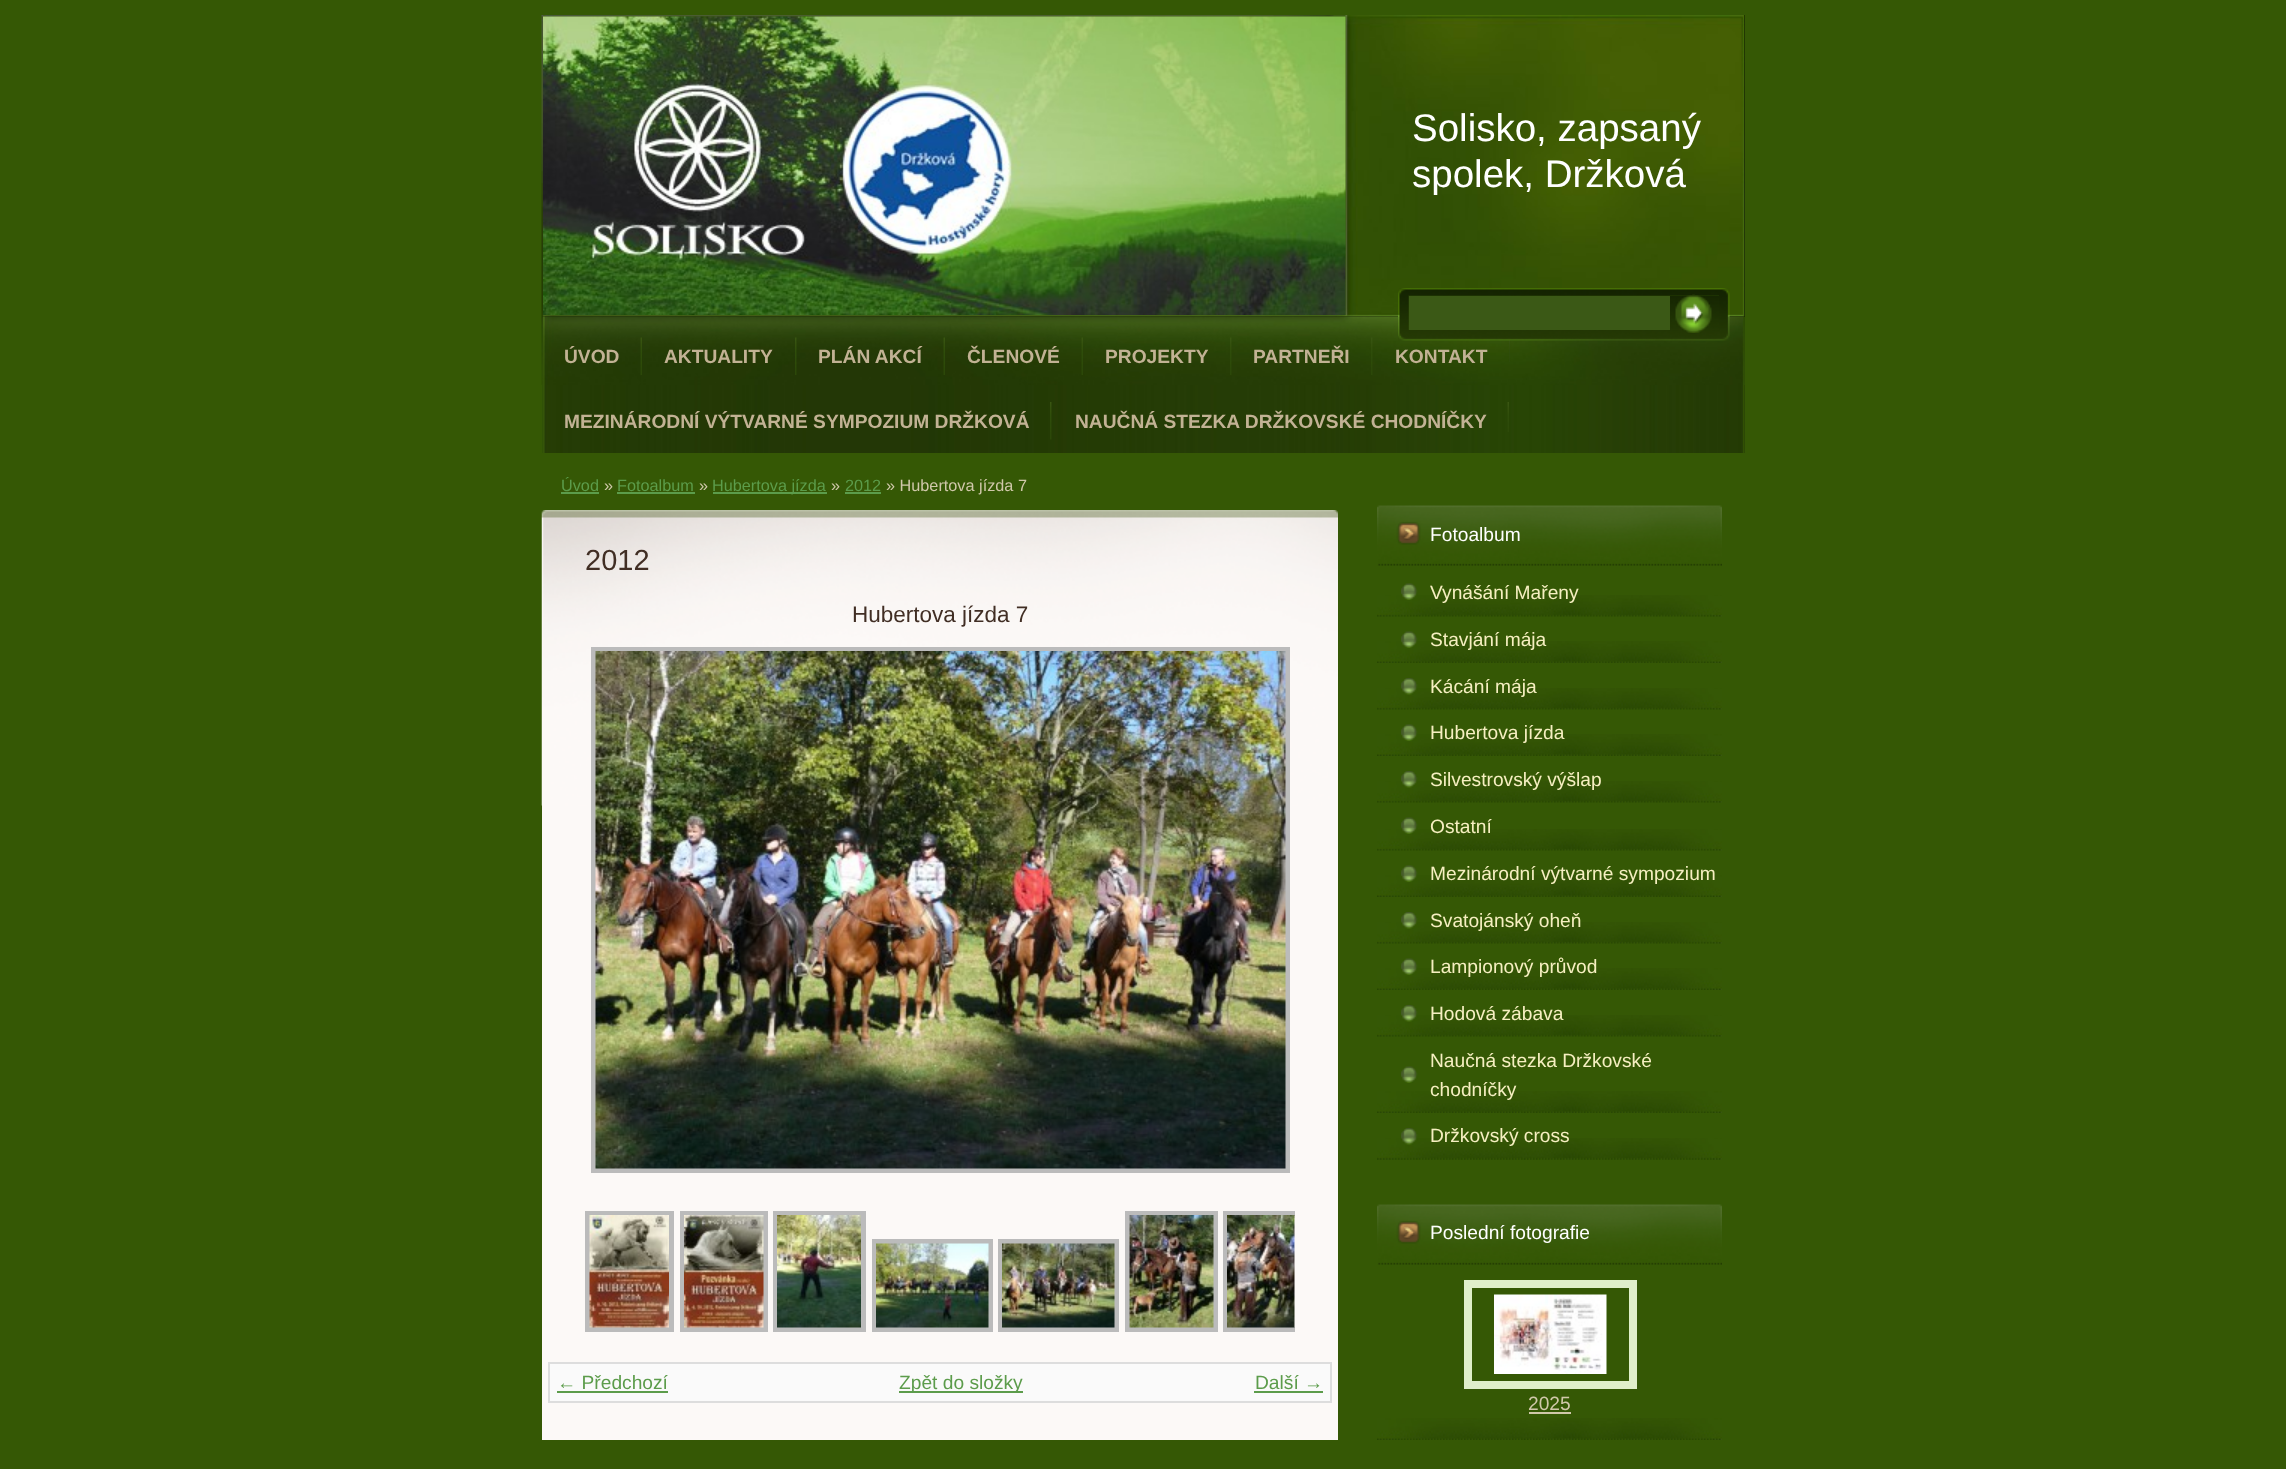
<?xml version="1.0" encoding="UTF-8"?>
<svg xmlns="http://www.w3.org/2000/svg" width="2286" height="1469">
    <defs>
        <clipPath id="clip1"><rect x="585" y="1211" width="710" height="129"/></clipPath>
    </defs>
    <rect width="100%" height="100%" fill="#355805"/>
    <rect x="542" y="15" width="1203" height="302" fill="#000000"/>
    <image x="541" y="15" width="1204" height="302" href="img_01.png"/>
    <image x="543" y="16" width="803" height="299" href="img_02.png"/>
    <text font-family="Liberation Sans" font-size="38.5" fill="#FFFFFF">
        <tspan x="1412" y="141">Solisko, zapsaný</tspan>
        <tspan x="1412" y="187">spolek, Držková</tspan>
    </text>
    <rect x="1744" y="317" width="1" height="136" fill="#253C05"/>
    <image x="542" y="316" width="1203" height="137" href="img_03.png"/>
    <image x="541" y="316" width="1204" height="69" href="img_04.png"/>
    <image x="640" y="337" width="2" height="38" href="img_05.png"/>
    <text x="564" y="363" font-family="Liberation Sans" font-size="19.2" font-weight="700" fill="#C2B294">ÚVOD</text>
    <image x="795" y="337" width="2" height="38" href="img_06.png"/>
    <text x="664" y="363" font-family="Liberation Sans" font-size="19.2" font-weight="700" fill="#C2B294">AKTUALITY</text>
    <image x="943" y="337" width="2" height="38" href="img_07.png"/>
    <text x="818" y="363" font-family="Liberation Sans" font-size="19.2" font-weight="700" fill="#C2B294">PLÁN AKCÍ</text>
    <image x="1081" y="337" width="2" height="38" href="img_08.png"/>
    <text x="967" y="363" font-family="Liberation Sans" font-size="19.2" font-weight="700" fill="#C2B294">ČLENOVÉ</text>
    <image x="1230" y="337" width="2" height="38" href="img_09.png"/>
    <text x="1105" y="363" font-family="Liberation Sans" font-size="19.2" font-weight="700" fill="#C2B294">PROJEKTY</text>
    <image x="1371" y="337" width="2" height="38" href="img_10.png"/>
    <text x="1253" y="363" font-family="Liberation Sans" font-size="19.2" font-weight="700" fill="#C2B294">PARTNEŘI</text>
    <image x="1509" y="340" width="1" height="22" href="img_11.png"/>
    <text x="1395" y="363" font-family="Liberation Sans" font-size="19.2" font-weight="700" fill="#C2B294">KONTAKT</text>
    <image x="1050" y="402" width="2" height="38" href="img_12.png"/>
    <text x="564" y="428" font-family="Liberation Sans" font-size="19.2" font-weight="700" fill="#C2B294">MEZINÁRODNÍ VÝTVARNÉ SYMPOZIUM DRŽKOVÁ</text>
    <image x="1507" y="402" width="2" height="30" href="img_13.png"/>
    <text x="1075" y="428" font-family="Liberation Sans" font-size="19.2" font-weight="700" fill="#C2B294">NAUČNÁ STEZKA DRŽKOVSKÉ CHODNÍČKY</text>
    <text x="561" y="491" font-family="Liberation Sans" font-size="16.25" fill="#5C9C4B">Úvod</text>
    <rect x="561" y="492" width="38" height="2" fill="#5C9C4B"/>
    <text x="604" y="491" font-family="Liberation Sans" font-size="16.25" fill="#D0C8AA">»</text>
    <text x="617" y="491" font-family="Liberation Sans" font-size="16.25" fill="#5C9C4B">Fotoalbum</text>
    <rect x="617" y="492" width="78" height="2" fill="#5C9C4B"/>
    <text x="699" y="491" font-family="Liberation Sans" font-size="16.25" fill="#D0C8AA">»</text>
    <rect x="713" y="492" width="114" height="2" fill="#5C9C4B"/>
    <text x="712" y="491" font-family="Liberation Sans" font-size="16.25" fill="#5C9C4B">Hubertova jízda</text>
    <text x="831" y="491" font-family="Liberation Sans" font-size="16.25" fill="#D0C8AA">»</text>
    <text x="845" y="491" font-family="Liberation Sans" font-size="16.25" fill="#5C9C4B">2012</text>
    <rect x="845" y="492" width="36" height="2" fill="#5C9C4B"/>
    <text x="886" y="491" font-family="Liberation Sans" font-size="16.25" fill="#D0C8AA">» Hubertova jízda 7</text>
    <rect x="542" y="805" width="796" height="635" fill="#FCF9F7"/>
    <image x="541" y="510" width="797" height="296" href="img_14.png"/>
    <text x="585" y="570" font-family="Liberation Sans" font-size="29" fill="#412E24">2012</text>
    <text x="852" y="622" font-family="Liberation Sans" font-size="22.5" fill="#412E24">Hubertova jízda 7</text>
    <rect x="593.5" y="649.5" width="694" height="521" fill="none" stroke="#BBBBBB" stroke-width="5"/>
    <image x="595" y="651" width="691" height="518" href="img_15.png"/>
    <rect x="587.5" y="1213.5" width="84" height="116" fill="none" stroke="#BBBBBB" stroke-width="5"/>
    <rect x="682.5" y="1213.5" width="83" height="116" fill="none" stroke="#BBBBBB" stroke-width="5"/>
    <rect x="775.5" y="1213.5" width="88" height="116" fill="none" stroke="#BBBBBB" stroke-width="5"/>
    <rect x="1127.5" y="1213.5" width="88" height="116" fill="none" stroke="#BBBBBB" stroke-width="5"/>
    <g clip-path="url(#clip1)">
        <rect x="1225.5" y="1213.5" width="88" height="116" fill="none" stroke="#BBBBBB" stroke-width="5"/>
    </g>
    <image x="589" y="1215" width="80" height="113" href="img_16.png"/>
    <image x="684" y="1215" width="80" height="113" href="img_17.png"/>
    <image x="777" y="1215" width="84" height="113" href="img_18.png"/>
    <rect x="874.5" y="1241.5" width="116" height="88" fill="none" stroke="#BBBBBB" stroke-width="5"/>
    <rect x="1000.5" y="1241.5" width="116" height="88" fill="none" stroke="#BBBBBB" stroke-width="5"/>
    <image x="1129" y="1215" width="85" height="113" href="img_19.png"/>
    <image x="1227" y="1215" width="68" height="113" href="img_20.png"/>
    <image x="876" y="1243" width="113" height="85" href="img_21.png"/>
    <image x="1002" y="1243" width="113" height="85" href="img_22.png"/>
    <rect x="549" y="1363" width="782" height="39" fill="#FAFAFA" stroke="#DDDDDD" stroke-width="2"/>
    <text x="557" y="1389" font-family="Liberation Sans" font-size="19.2" fill="#5C9C4B">← Předchozí</text>
    <rect x="557" y="1391" width="111" height="2" fill="#5C9C4B"/>
    <rect x="899" y="1391" width="124" height="2" fill="#5C9C4B"/>
    <text x="899" y="1389" font-family="Liberation Sans" font-size="19.2" fill="#5C9C4B">Zpět do složky</text>
    <text x="1255" y="1389" font-family="Liberation Sans" font-size="19.2" fill="#5C9C4B">Další →</text>
    <rect x="1254" y="1391" width="69" height="2" fill="#5C9C4B"/>
    <image x="1398" y="288" width="332" height="53" href="img_23.png"/>
    <image x="1408" y="295" width="311" height="35" href="img_24.png"/>
    <image x="1408" y="295" width="311" height="35" href="img_25.png"/>
    <rect x="1409" y="296" width="261" height="34" fill="#3B5916"/>
    <image x="1675" y="294" width="37" height="39" href="img_26.png"/>
    <image x="1377" y="505" width="345" height="61" href="img_27.png"/>
    <text x="1430" y="541" font-family="Liberation Sans" font-size="19.2" fill="#FFFFFF">Fotoalbum</text>
    <image x="1377" y="1138" width="345" height="22" href="img_28.png"/>
    <image x="1377" y="595" width="345" height="22" href="img_28.png"/>
    <image x="1401" y="583" width="17" height="17" href="img_29.png"/>
    <text x="1430" y="599" font-family="Liberation Sans" font-size="19.2" fill="#F6EFC1">Vynášání Mařeny</text>
    <image x="1377" y="641" width="345" height="22" href="img_30.png"/>
    <image x="1401" y="631" width="17" height="17" href="img_31.png"/>
    <text x="1430" y="646" font-family="Liberation Sans" font-size="19.2" fill="#F6EFC1">Stavjání mája</text>
    <image x="1377" y="688" width="345" height="22" href="img_28.png"/>
    <image x="1401" y="678" width="17" height="17" href="img_32.png"/>
    <text x="1430" y="693" font-family="Liberation Sans" font-size="19.2" fill="#F6EFC1">Kácání mája</text>
    <image x="1377" y="734" width="345" height="22" href="img_30.png"/>
    <image x="1401" y="724" width="17" height="17" href="img_31.png"/>
    <text x="1430" y="739" font-family="Liberation Sans" font-size="19.2" fill="#F6EFC1">Hubertova jízda</text>
    <image x="1377" y="781" width="345" height="22" href="img_28.png"/>
    <image x="1401" y="771" width="17" height="17" href="img_32.png"/>
    <text x="1430" y="786" font-family="Liberation Sans" font-size="19.2" fill="#F6EFC1">Silvestrovský výšlap</text>
    <image x="1377" y="829" width="345" height="22" href="img_28.png"/>
    <image x="1401" y="817" width="17" height="17" href="img_29.png"/>
    <text x="1430" y="833" font-family="Liberation Sans" font-size="19.2" fill="#F6EFC1">Ostatní</text>
    <image x="1377" y="875" width="345" height="22" href="img_30.png"/>
    <image x="1401" y="865" width="17" height="17" href="img_31.png"/>
    <text x="1430" y="880" font-family="Liberation Sans" font-size="19.2" fill="#F6EFC1">Mezinárodní výtvarné sympozium</text>
    <image x="1377" y="922" width="345" height="22" href="img_28.png"/>
    <image x="1401" y="912" width="17" height="17" href="img_32.png"/>
    <text x="1430" y="927" font-family="Liberation Sans" font-size="19.2" fill="#F6EFC1">Svatojánský oheň</text>
    <image x="1377" y="968" width="345" height="22" href="img_30.png"/>
    <image x="1401" y="958" width="17" height="17" href="img_31.png"/>
    <text x="1430" y="973" font-family="Liberation Sans" font-size="19.2" fill="#F6EFC1">Lampionový průvod</text>
    <image x="1377" y="1015" width="345" height="22" href="img_28.png"/>
    <image x="1401" y="1005" width="17" height="17" href="img_32.png"/>
    <text x="1430" y="1020" font-family="Liberation Sans" font-size="19.2" fill="#F6EFC1">Hodová zábava</text>
    <image x="1377" y="1091" width="345" height="22" href="img_30.png"/>
    <image x="1401" y="1066" width="17" height="17" href="img_33.png"/>
    <text font-family="Liberation Sans" font-size="19.2" fill="#F6EFC1">
        <tspan x="1430" y="1067">Naučná stezka Držkovské</tspan>
        <tspan x="1430" y="1096">chodníčky</tspan>
    </text>
    <image x="1377" y="1159" width="343" height="1" href="img_34.png"/>
    <image x="1401" y="1128" width="17" height="17" href="img_32.png"/>
    <text x="1430" y="1142" font-family="Liberation Sans" font-size="19.2" fill="#F6EFC1">Držkovský cross</text>
    <image x="1377" y="1204" width="345" height="61" href="img_27.png"/>
    <text x="1430" y="1239" font-family="Liberation Sans" font-size="19.2" fill="#FFFFFF">Poslední fotografie</text>
    <image x="1377" y="1418" width="345" height="22" href="img_30.png"/>
    <rect x="1468" y="1284" width="165" height="101" fill="none" stroke="#E0EFCA" stroke-width="8"/>
    <image x="1494" y="1294" width="113" height="80" href="img_35.png"/>
    <text x="1528" y="1410" font-family="Liberation Sans" font-size="19.2" fill="#D0C8AA">2025</text>
    <rect x="1529" y="1412" width="42" height="2" fill="#D0C8AA"/>
</svg>
